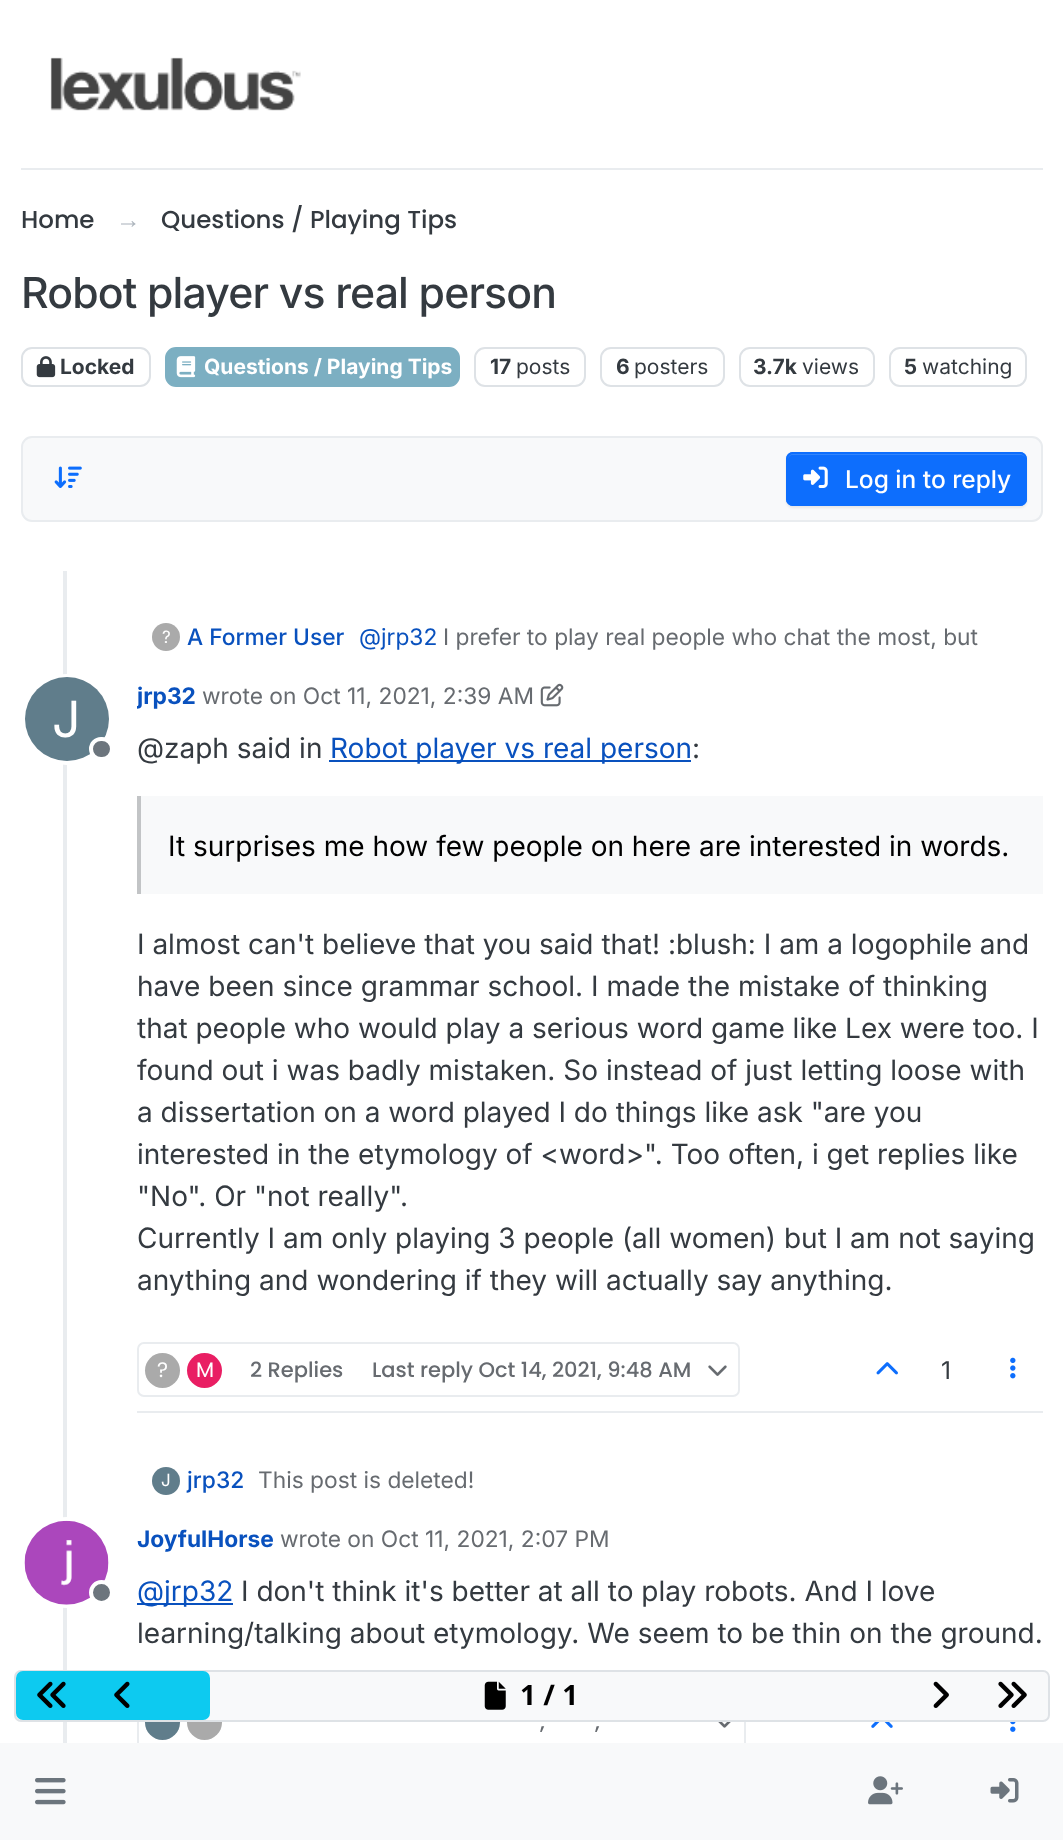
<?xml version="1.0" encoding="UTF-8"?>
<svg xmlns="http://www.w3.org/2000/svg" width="1063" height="1840">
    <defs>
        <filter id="blur1" x="-50%" y="-200%" width="200%" height="500%"><feGaussianBlur stdDeviation="1"/></filter>
        <clipPath id="clip1"><rect x="137" y="677" width="59" height="35"/></clipPath>
    </defs>
    <rect width="100%" height="100%" fill="#FFFFFF"/>
    <rect x="21" y="168" width="1022" height="2" fill="#E9ECEF"/>
    <image x="50" y="57" width="251" height="54" href="img_01.png"/>
    <text x="21" y="228" font-family="Poppins" font-size="24.5" font-weight="500" fill="#343A40">Home</text>
    <text x="116" y="228" font-family="Liberation Sans" font-size="24.5" fill="#ADB5BD">→</text>
    <text x="161" y="228" font-family="Poppins" font-size="24.5" font-weight="500" fill="#343A40">Questions / Playing Tips</text>
    <text x="21" y="308" font-family="Inter" font-size="42.75" font-weight="500" letter-spacing="-0.85" fill="#343A40">Robot player vs real person</text>
    <rect x="22" y="348" width="128" height="38" rx="10" fill="none" stroke="#DEE2E6" stroke-width="2"/>
    <image x="36" y="356" width="20" height="22" href="img_02.png"/>
    <text x="60" y="374" font-family="Inter" font-size="21" font-weight="700" fill="#343A40">Locked</text>
    <rect x="166" y="348" width="293" height="38" rx="10" fill="#7CAFC2" stroke="#7CAFC2" stroke-width="2"/>
    <image x="176" y="356" width="20" height="22" href="img_03.png"/>
    <text x="204" y="374" font-family="Inter" font-size="21" font-weight="700" fill="#FFFFFF">Questions / Playing Tips</text>
    <rect x="475" y="348" width="110" height="38" rx="10" fill="none" stroke="#DEE2E6" stroke-width="2"/>
    <text x="490" y="374" font-family="Inter" font-size="21" font-weight="700" fill="#343A40">17</text>
    <text x="516" y="374" font-family="Inter" font-size="21" fill="#343A40">posts</text>
    <rect x="601" y="348" width="123" height="38" rx="10" fill="none" stroke="#DEE2E6" stroke-width="2"/>
    <text x="616" y="374" font-family="Inter" font-size="21" font-weight="700" fill="#343A40">6</text>
    <text x="634" y="374" font-family="Inter" font-size="21" fill="#343A40">posters</text>
    <rect x="740" y="348" width="134" height="38" rx="10" fill="none" stroke="#DEE2E6" stroke-width="2"/>
    <text x="753" y="374" font-family="Inter" font-size="21" font-weight="700" fill="#343A40">3.7k</text>
    <text x="802" y="374" font-family="Inter" font-size="21" fill="#343A40">views</text>
    <rect x="890" y="348" width="136" height="38" rx="10" fill="none" stroke="#DEE2E6" stroke-width="2"/>
    <text x="904" y="374" font-family="Inter" font-size="21" font-weight="700" fill="#343A40">5</text>
    <text x="922" y="374" font-family="Inter" font-size="21" fill="#343A40">watching</text>
    <rect x="22" y="437" width="1020" height="84" rx="10" fill="#F8F9FA" stroke="#E9ECEF" stroke-width="2"/>
    <image x="54" y="466" width="28" height="22" href="img_04.png"/>
    <rect x="786" y="453" width="241" height="55" rx="7" fill="#000000" fill-opacity="0.07" filter="url(#blur1)"/>
    <rect x="786" y="452" width="241" height="54" rx="7" fill="#0D6EFD"/>
    <path d="M 793 455 H 1020 C 1023 455 1026 457 1026 460 C 1026 457 1026 454 1022 453 H 792 C 788 454 788 457 788 460 C 788 457 790 455 793 455 Z" fill="#3184FD"/>
    <rect x="787" y="453" width="239" height="52" rx="6" fill="none" stroke="#0D6EFD" stroke-width="2"/>
    <image x="803" y="466" width="25" height="22" href="img_05.png"/>
    <text x="845" y="488" font-family="Inter" font-size="24.5" font-weight="500" fill="#FFFFFF">Log in to reply</text>
    <rect x="63" y="571" width="4" height="1172" fill="#E9ECEF"/>
    <circle cx="166" cy="637" r="14" fill="#AAAAAA"/>
    <text x="162" y="643" font-family="Inter" font-size="17" fill="#FFFFFF">?</text>
    <text x="187" y="645" font-family="Inter" font-size="22.75" font-weight="500" fill="#0951BE">A Former User</text>
    <text x="359" y="645" font-family="Inter" font-size="22.75" fill="#0951BE">@jrp32</text>
    <text x="443" y="645" font-family="Inter" font-size="22.75" fill="#676B70">I prefer to play real people who chat the most, but</text>
    <circle cx="66.5" cy="719.5" r="43.5" fill="none" stroke="#FFFFFF" stroke-width="4"/>
    <circle cx="67" cy="719" r="42" fill="#607D8B"/>
    <text x="52" y="737" font-family="Inter" font-size="50" fill="#FFFFFF">J</text>
    <rect x="91" y="739" width="21" height="20" rx="10" fill="#6C757D" stroke="#FFFFFF" stroke-width="4"/>
    <g clip-path="url(#clip1)">
        <text x="137" y="704" font-family="Inter" font-size="22.75" font-weight="700" fill="#0951BE">jrp32</text>
    </g>
    <text x="202" y="704" font-family="Inter" font-size="22.75" fill="#676B70">wrote on Oct 11, 2021, 2:39 AM</text>
    <image x="540" y="683" width="24" height="24" href="img_06.png"/>
    <text x="137" y="758" font-family="Inter" font-size="28" fill="#343A40">@zaph said in</text>
    <rect x="329" y="760" width="362" height="2" fill="#0951BE"/>
    <text x="330" y="758" font-family="Inter" font-size="28" fill="#0951BE">Robot player vs real person</text>
    <text x="692" y="758" font-family="Inter" font-size="28" fill="#343A40">:</text>
    <rect x="141" y="796" width="902" height="98" fill="#F8F9FA"/>
    <rect x="137" y="796" width="4" height="98" fill="#C2C4C6"/>
    <text x="168" y="856" font-family="Inter" font-size="28" fill="#000000">It surprises me how few people on here are interested in words.</text>
    <text font-family="Inter" font-size="28" fill="#343A40">
        <tspan x="137" y="954">I almost can't believe that you said that! :blush: I am a logophile and</tspan>
        <tspan x="137" y="996">have been since grammar school. I made the mistake of thinking</tspan>
        <tspan x="137" y="1038">that people who would play a serious word game like Lex were too. I</tspan>
        <tspan x="137" y="1080">found out i was badly mistaken. So instead of just letting loose with</tspan>
        <tspan x="137" y="1122">a dissertation on a word played I do things like ask "are you</tspan>
        <tspan x="137" y="1164">interested in the etymology of &lt;word&gt;". Too often, i get replies like</tspan>
        <tspan x="137" y="1206">"No". Or "not really".</tspan>
        <tspan x="137" y="1248">Currently I am only playing 3 people (all women) but I am not saying</tspan>
        <tspan x="137" y="1290">anything and wondering if they will actually say anything.</tspan>
    </text>
    <rect x="137" y="1411" width="906" height="2" fill="#E9ECEF"/>
    <rect x="138" y="1343" width="601" height="53" rx="6" fill="none" stroke="#E9ECEF" stroke-width="2"/>
    <circle cx="162.5" cy="1370.5" r="17.5" fill="#AAAAAA"/>
    <text x="157" y="1377" font-family="Poppins" font-size="21" fill="#FFFFFF">?</text>
    <circle cx="204.5" cy="1370.5" r="17.5" fill="#E91E63"/>
    <text x="196" y="1377" font-family="Poppins" font-size="21" fill="#FFFFFF">M</text>
    <text x="250" y="1377" font-family="Poppins" font-size="21" font-weight="500" fill="#676B70">2 Replies</text>
    <text x="372" y="1377" font-family="Poppins" font-size="21" font-weight="500" fill="#676B70">Last reply Oct 14, 2021, 9:48 AM</text>
    <image x="708" y="1365" width="19" height="11" href="img_07.png"/>
    <image x="876" y="1362" width="22" height="13" href="img_08.png"/>
    <text x="941" y="1379" font-family="Inter" font-size="24.5" fill="#343A40">1</text>
    <image x="1010" y="1357" width="6" height="22" href="img_09.png"/>
    <circle cx="166" cy="1481" r="14" fill="#607D8B"/>
    <text x="161" y="1486" font-family="Inter" font-size="17" fill="#FFFFFF">J</text>
    <text x="187" y="1488" font-family="Inter" font-size="22.75" font-weight="500" fill="#0951BE">jrp32</text>
    <text x="258" y="1488" font-family="Inter" font-size="22.75" fill="#676B70">This post is deleted!</text>
    <circle cx="66.5" cy="1562.5" r="43.5" fill="none" stroke="#FFFFFF" stroke-width="4"/>
    <image x="24" y="1520" width="85" height="85" href="img_10.png"/>
    <circle cx="101.5" cy="1592.5" r="10.5" fill="#6C757D" stroke="#FFFFFF" stroke-width="4"/>
    <text x="137" y="1547" font-family="Inter" font-size="22.75" font-weight="700" fill="#0951BE">JoyfulHorse</text>
    <text x="280" y="1547" font-family="Inter" font-size="22.75" fill="#676B70">wrote on Oct 11, 2021, 2:07 PM</text>
    <rect x="137" y="1603" width="96" height="2" fill="#0951BE"/>
    <text x="137" y="1601" font-family="Inter" font-size="28" fill="#0951BE">@jrp32</text>
    <text x="241" y="1601" font-family="Inter" font-size="28" fill="#343A40">I don't think it's better at all to play robots. And I love</text>
    <text x="137" y="1643" font-family="Inter" font-size="28" fill="#343A40">learning/talking about etymology. We seem to be thin on the ground.</text>
    <rect x="138" y="1697" width="607" height="52" fill="none" stroke="#E9ECEF" stroke-width="2"/>
    <circle cx="162.5" cy="1722.5" r="17.5" fill="#607D8B"/>
    <circle cx="204.5" cy="1722.5" r="17.5" fill="#AAAAAA"/>
    <image x="718" y="1722" width="13" height="6" href="img_11.png"/>
    <text x="540" y="1729" font-family="Poppins" font-size="21" font-weight="500" fill="#676B70">,</text>
    <text x="595" y="1729" font-family="Poppins" font-size="21" font-weight="500" fill="#676B70">,</text>
    <image x="871" y="1722" width="22" height="6" href="img_12.png"/>
    <image x="1010" y="1722" width="6" height="10" href="img_13.png"/>
    <rect x="15" y="1671" width="1034" height="50" rx="6" fill="#F8F9FA" stroke="#DEE2E6" stroke-width="2"/>
    <rect x="16" y="1671" width="194" height="49" rx="7" fill="#0DCAF0"/>
    <image x="37" y="1681" width="29" height="27" href="img_14.png"/>
    <image x="114" y="1681" width="16" height="27" href="img_15.png"/>
    <image x="484" y="1681" width="22" height="29" href="img_16.png"/>
    <text x="520" y="1705" font-family="Noto Sans" font-size="28" font-weight="700" fill="#000000">1 / 1</text>
    <image x="933" y="1681" width="16" height="27" href="img_17.png"/>
    <image x="998" y="1681" width="29" height="27" href="img_18.png"/>
    <rect x="0" y="1743" width="1063" height="97" fill="#F8F9FA"/>
    <image x="35" y="1778" width="31" height="27" href="img_19.png"/>
    <image x="868" y="1776" width="35" height="29" href="img_20.png"/>
    <image x="990" y="1778" width="29" height="25" href="img_21.png"/>
</svg>
